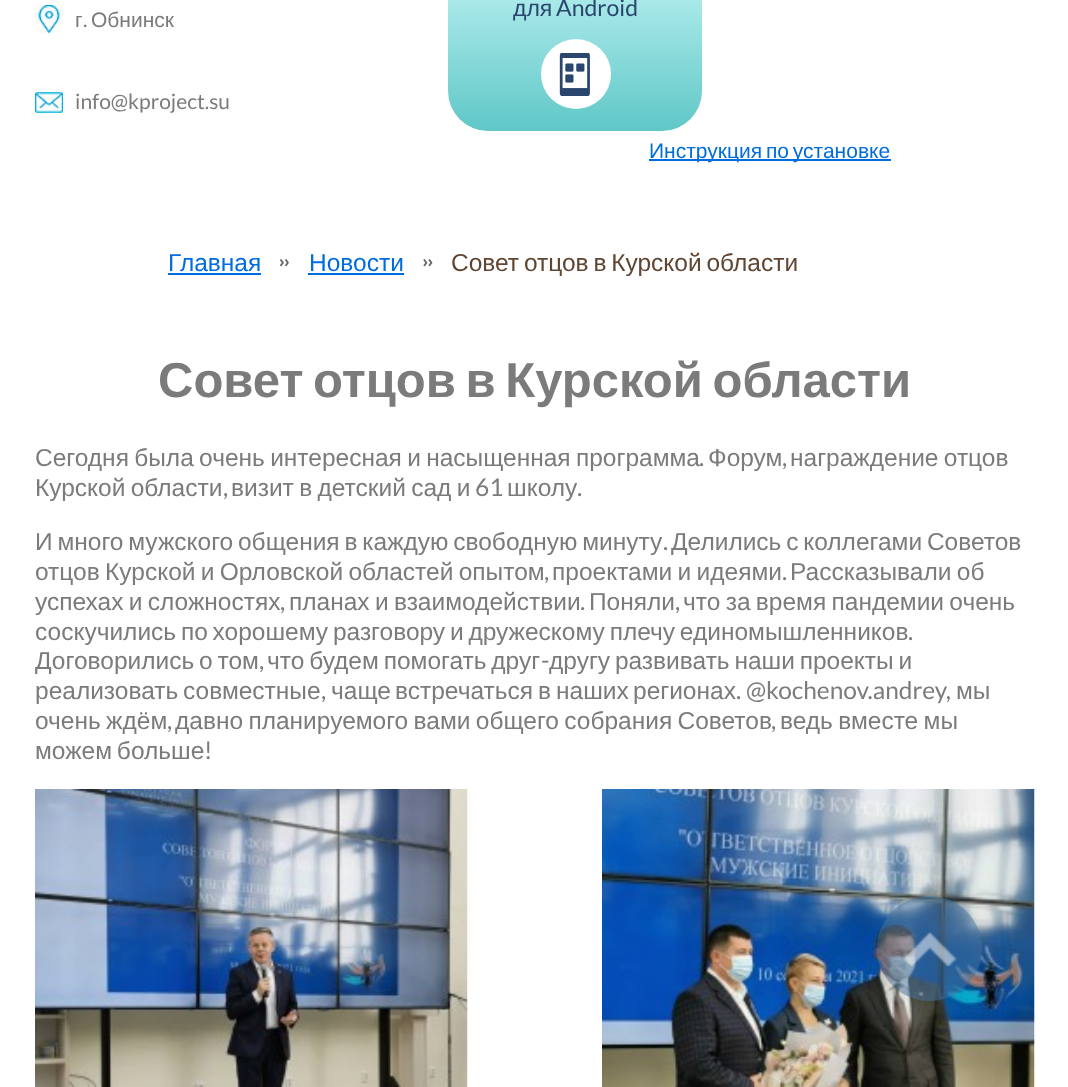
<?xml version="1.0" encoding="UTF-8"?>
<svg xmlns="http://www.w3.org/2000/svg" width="1068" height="1087">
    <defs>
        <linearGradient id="g1" gradientUnits="userSpaceOnUse" x1="575" y1="-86" x2="575" y2="131"><stop offset="0" stop-color="#D8FFFF"/><stop offset="1" stop-color="#60C7C7"/></linearGradient>
    </defs>
    <rect width="100%" height="100%" fill="#FFFFFF"/>
    <image x="35" y="5" width="28" height="28" href="img_01.png"/>
    <text x="75" y="27" font-family="Liberation Sans" font-size="21" fill="#7B7B7B">г</text>
    <text x="83" y="27" font-family="Lato" font-size="21" fill="#7B7B7B">.</text>
    <text x="91" y="27" font-family="Liberation Sans" font-size="21" fill="#7B7B7B">Обнинск</text>
    <rect x="448" y="-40" width="254" height="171" rx="40" fill="url(#g1)"/>
    <text x="513" y="16" font-family="Liberation Sans" font-size="23" fill="#2A456E">для</text>
    <text x="556" y="16" font-family="Lato" font-size="23" fill="#2A456E">Android</text>
    <circle cx="576" cy="74" r="35" fill="#FFFFFF"/>
    <image x="559" y="53" width="31" height="43" href="img_02.png"/>
    <image x="35" y="87" width="28" height="29" href="img_03.png"/>
    <text x="75" y="109" font-family="Lato" font-size="21" fill="#7B7B7B">info@kproject.su</text>
    <rect x="649" y="159" width="242" height="2" fill="#006DDE"/>
    <text x="649" y="158" word-spacing="-2" font-family="Liberation Sans" font-size="21" fill="#006DDE">Инструкция по установке</text>
    <text x="168" y="271" font-family="Liberation Sans" font-size="24.5" fill="#006DDE">Главная</text>
    <rect x="168" y="273" width="93" height="2" fill="#006DDE"/>
    <image x="279" y="259" width="10" height="8" href="img_04.png"/>
    <text x="309" y="271" font-family="Liberation Sans" font-size="24.5" fill="#006DDE">Новости</text>
    <rect x="308" y="273" width="96" height="2" fill="#006DDE"/>
    <image x="423" y="259" width="10" height="8" href="img_05.png"/>
    <text x="451" y="271" word-spacing="-2" font-family="Liberation Sans" font-size="24.5" fill="#604632">Совет отцов в Курской области</text>
    <text x="158" y="397" word-spacing="-4" font-family="Liberation Sans" font-size="49" font-weight="700" fill="#7B7B7B">Совет отцов в Курской области</text>
    <text x="35" y="466" word-spacing="-1.5" font-family="Liberation Sans" font-size="24.5" fill="#7B7B7B">Сегодня была очень интересная и насыщенная программа</text>
    <text x="699" y="466" font-family="Lato" font-size="24.5" fill="#7B7B7B">.</text>
    <text x="708" y="466" font-family="Liberation Sans" font-size="24.5" fill="#7B7B7B">Форум</text>
    <text x="782" y="466" font-family="Lato" font-size="24.5" fill="#7B7B7B">,</text>
    <text x="790" y="466" word-spacing="-1.5" font-family="Liberation Sans" font-size="24.5" fill="#7B7B7B">награждение отцов</text>
    <text x="35" y="496" word-spacing="-1.5" font-family="Liberation Sans" font-size="24.5" fill="#7B7B7B">Курской области</text>
    <text x="223" y="496" font-family="Lato" font-size="24.5" fill="#7B7B7B">,</text>
    <text x="231" y="496" word-spacing="-1.5" font-family="Liberation Sans" font-size="24.5" fill="#7B7B7B">визит в детский сад и</text>
    <text x="475" y="496" font-family="Lato" font-size="24.5" fill="#7B7B7B">61</text>
    <text x="507" y="496" font-family="Liberation Sans" font-size="24.5" fill="#7B7B7B">школу</text>
    <text x="577" y="496" font-family="Lato" font-size="24.5" fill="#7B7B7B">.</text>
    <text x="35" y="550" word-spacing="-2" font-family="Liberation Sans" font-size="24.5" fill="#7B7B7B">И много мужского общения в каждую свободную минуту</text>
    <text x="663" y="550" font-family="Lato" font-size="24.5" fill="#7B7B7B">.</text>
    <text x="671" y="550" word-spacing="-2" font-family="Liberation Sans" font-size="24.5" fill="#7B7B7B">Делились с коллегами Советов</text>
    <text x="35" y="580" word-spacing="-1.5" font-family="Liberation Sans" font-size="24.5" fill="#7B7B7B">отцов Курской и Орловской областей опытом</text>
    <text x="544" y="580" font-family="Lato" font-size="24.5" fill="#7B7B7B">,</text>
    <text x="552" y="580" word-spacing="-1.5" font-family="Liberation Sans" font-size="24.5" fill="#7B7B7B">проектами и идеями</text>
    <text x="782" y="580" font-family="Lato" font-size="24.5" fill="#7B7B7B">.</text>
    <text x="790" y="580" word-spacing="-1.5" font-family="Liberation Sans" font-size="24.5" fill="#7B7B7B">Рассказывали об</text>
    <text x="35" y="610" word-spacing="-1.5" font-family="Liberation Sans" font-size="24.5" fill="#7B7B7B">успехах и сложностях</text>
    <text x="280" y="610" font-family="Lato" font-size="24.5" fill="#7B7B7B">,</text>
    <text x="289" y="610" word-spacing="-1.5" font-family="Liberation Sans" font-size="24.5" fill="#7B7B7B">планах и взаимодействии</text>
    <text x="580" y="610" font-family="Lato" font-size="24.5" fill="#7B7B7B">.</text>
    <text x="589" y="610" font-family="Liberation Sans" font-size="24.5" fill="#7B7B7B">Поняли</text>
    <text x="675" y="610" font-family="Lato" font-size="24.5" fill="#7B7B7B">,</text>
    <text x="683" y="610" word-spacing="-1.5" font-family="Liberation Sans" font-size="24.5" fill="#7B7B7B">что за время пандемии очень</text>
    <text x="35" y="640" word-spacing="-2" font-family="Liberation Sans" font-size="24.5" fill="#7B7B7B">соскучились по хорошему разговору и дружескому плечу единомышленников</text>
    <text x="908" y="640" font-family="Lato" font-size="24.5" fill="#7B7B7B">.</text>
    <text x="35" y="669" word-spacing="-2" font-family="Liberation Sans" font-size="24.5" fill="#7B7B7B">Договорились о том</text>
    <text x="267" y="669" word-spacing="-2" font-family="Liberation Sans" font-size="24.5" fill="#7B7B7B">что будем помогать друг</text>
    <text x="541" y="669" font-family="Lato" font-size="24.5" fill="#7B7B7B">-</text>
    <text x="549" y="669" word-spacing="-2" font-family="Liberation Sans" font-size="24.5" fill="#7B7B7B">другу развивать наши проекты и</text>
    <text x="259" y="669" font-family="Lato" font-size="24.5" fill="#7B7B7B">,</text>
    <text x="35" y="699" font-family="Liberation Sans" font-size="24.5" fill="#7B7B7B">реализовать</text>
    <text x="183" y="699" font-family="Liberation Sans" font-size="24.5" fill="#7B7B7B">совместные</text>
    <text x="321" y="699" font-family="Lato" font-size="24.5" fill="#7B7B7B">,</text>
    <text x="331" y="699" font-family="Liberation Sans" font-size="24.5" fill="#7B7B7B">чаще</text>
    <text x="395" y="699" font-family="Liberation Sans" font-size="24.5" fill="#7B7B7B">встречаться</text>
    <text x="538" y="699" font-family="Liberation Sans" font-size="24.5" fill="#7B7B7B">в</text>
    <text x="556" y="699" font-family="Liberation Sans" font-size="24.5" fill="#7B7B7B">наших</text>
    <text x="633" y="699" font-family="Liberation Sans" font-size="24.5" fill="#7B7B7B">регионах</text>
    <text x="736" y="699" font-family="Lato" font-size="24.5" fill="#7B7B7B">. @kochenov.andrey,</text>
    <text x="956" y="699" font-family="Liberation Sans" font-size="24.5" fill="#7B7B7B">мы</text>
    <text x="35" y="729" word-spacing="-1.5" font-family="Liberation Sans" font-size="24.5" fill="#7B7B7B">очень ждём</text>
    <text x="167" y="729" font-family="Lato" font-size="24.5" fill="#7B7B7B">,</text>
    <text x="175" y="729" word-spacing="-1.5" font-family="Liberation Sans" font-size="24.5" fill="#7B7B7B">давно планируемого вами общего собрания Советов</text>
    <text x="771" y="729" font-family="Lato" font-size="24.5" fill="#7B7B7B">,</text>
    <text x="780" y="729" word-spacing="-1.5" font-family="Liberation Sans" font-size="24.5" fill="#7B7B7B">ведь вместе мы</text>
    <text x="35" y="759" word-spacing="-2" font-family="Liberation Sans" font-size="24.5" fill="#7B7B7B">можем больше</text>
    <text x="204" y="759" font-family="Lato" font-size="24.5" fill="#7B7B7B">!</text>
    <image x="35" y="789" width="433" height="298" href="img_06.png"/>
    <image x="602" y="789" width="433" height="298" href="img_07.png"/>
    <circle cx="929.5" cy="948.5" r="52.5" fill="#4574A0" fill-opacity="0.5"/>
    <image x="903" y="932" width="55" height="34" href="img_08.png"/>
</svg>
